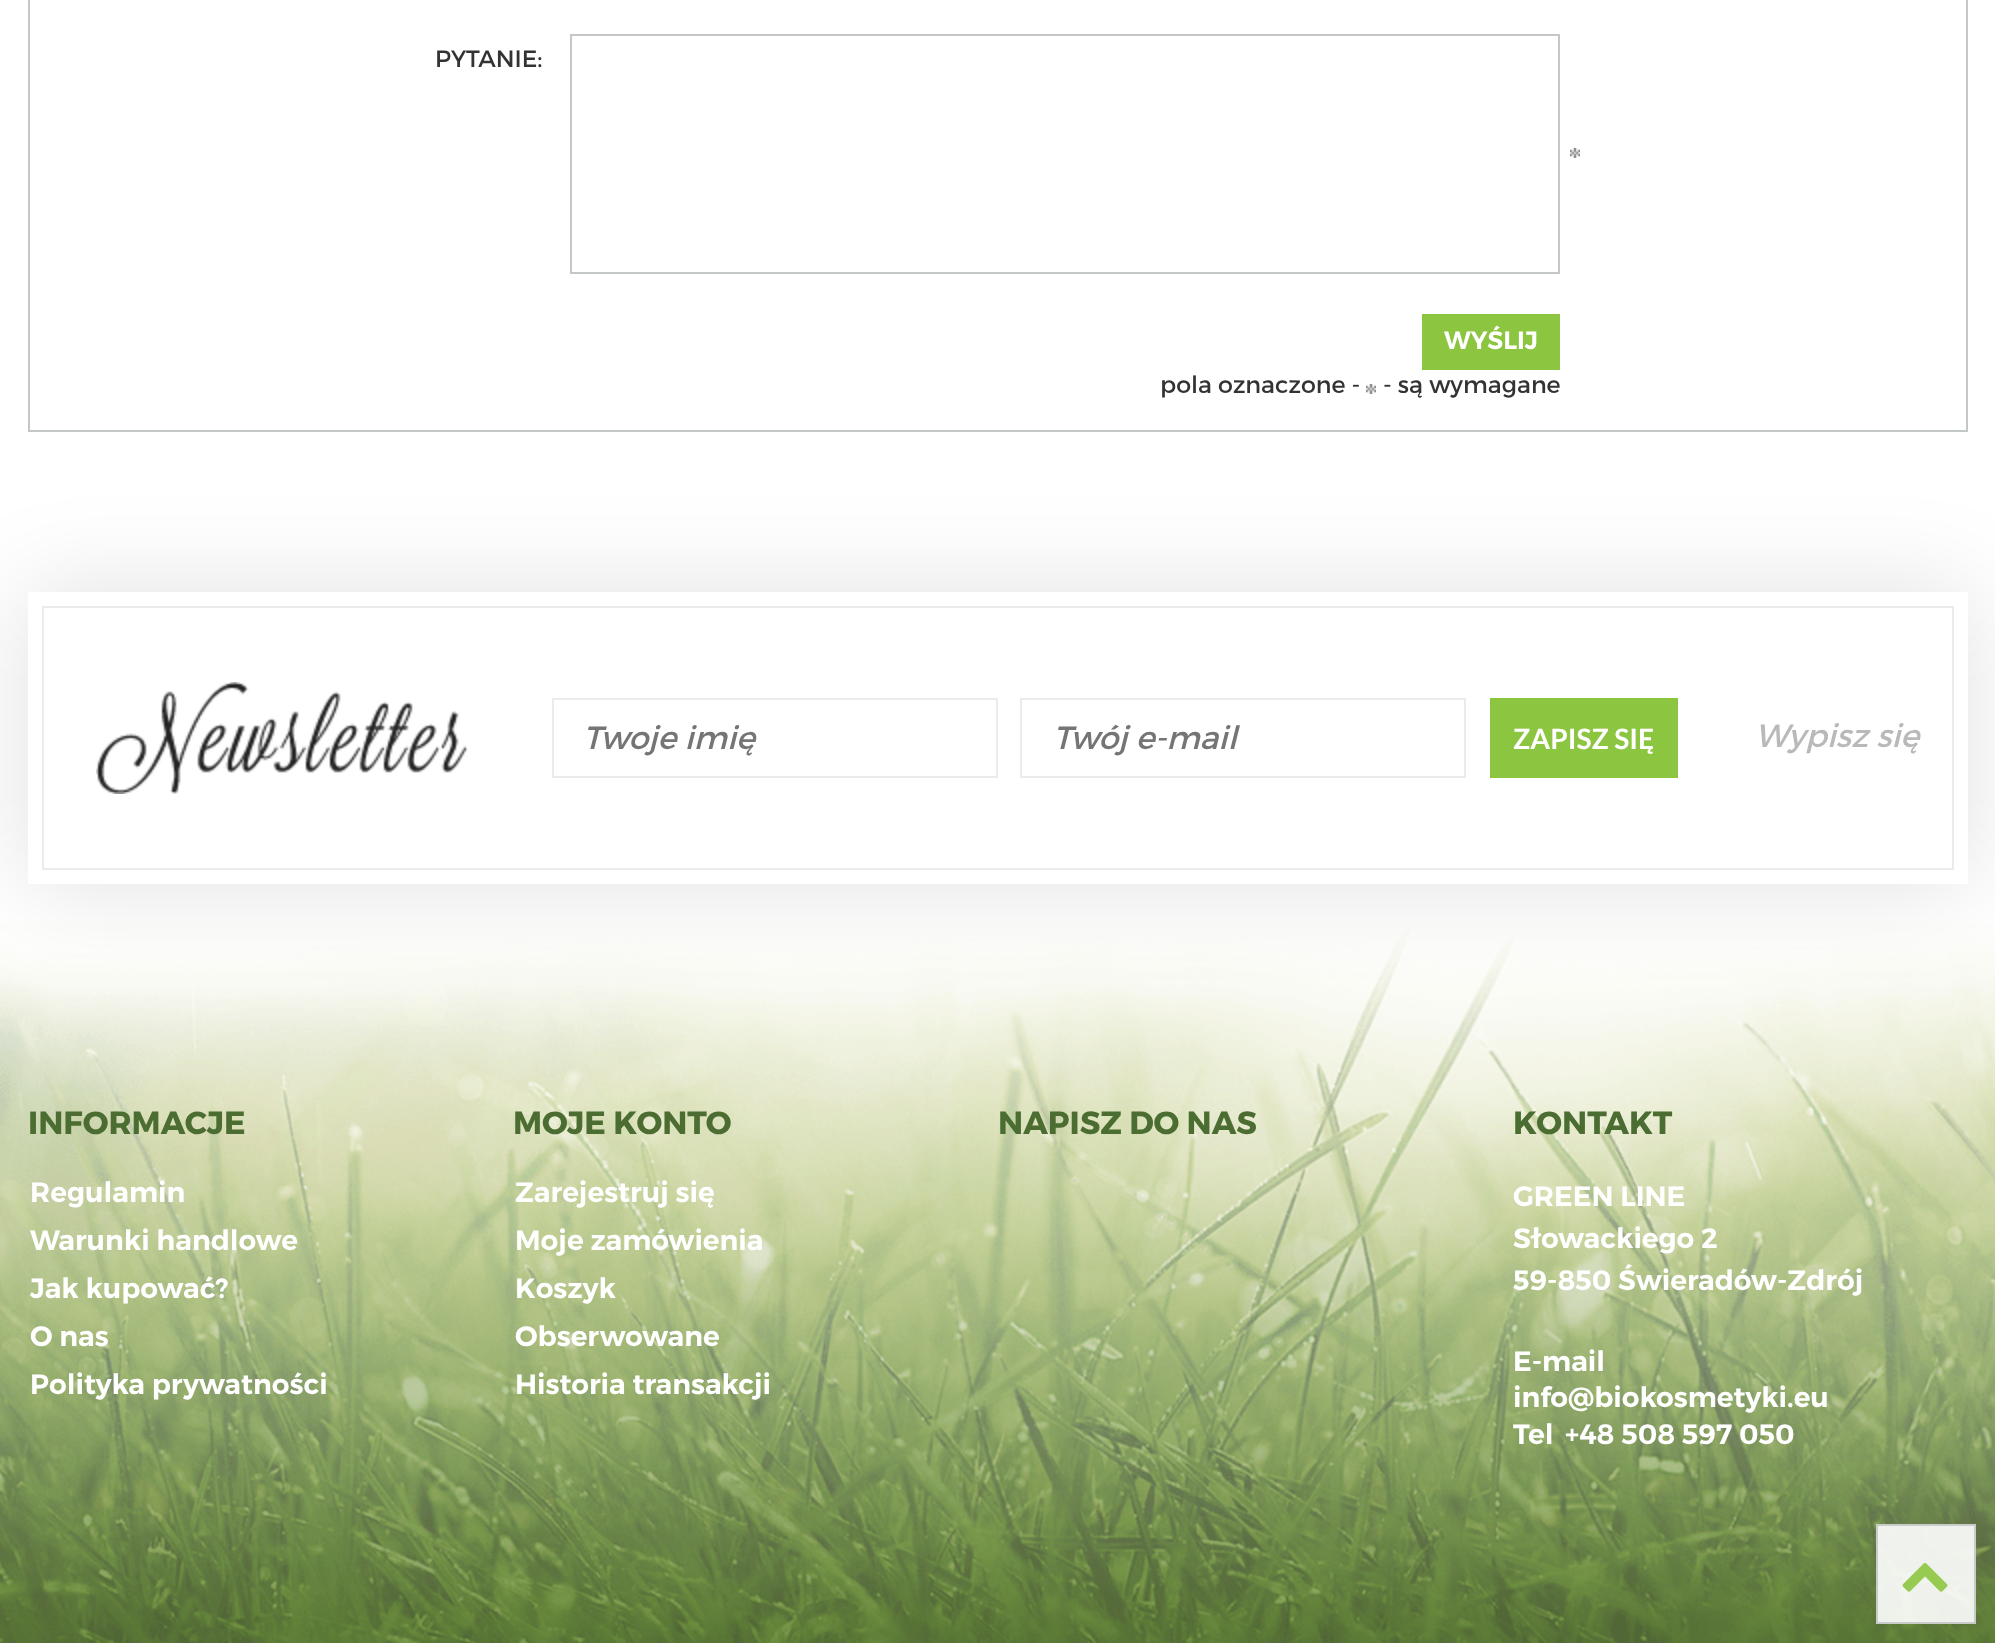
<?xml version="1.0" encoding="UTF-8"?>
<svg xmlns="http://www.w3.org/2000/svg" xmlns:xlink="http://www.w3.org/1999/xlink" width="1995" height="1643">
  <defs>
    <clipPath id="clip1"><path d="M 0 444 h 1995 v 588 h -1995 z m 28 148 h 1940 v 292 h -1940 z" clip-rule="evenodd" /></clipPath>
  </defs>
  <rect width="100%" height="100%" fill="#ffffff" />
  <image x="0" y="923" width="1995" height="720" xlink:href="image1.png" />
  <rect x="1966" width="2" height="432" fill="#c4c7c8" />
  <rect x="28" y="430" width="1940" height="2" fill="#c4c7c8" />
  <rect x="28" width="2" height="432" fill="#c4c7c8" />
  <rect x="571" y="35" width="988" height="238" fill="none" stroke="#c4c7c8" stroke-width="2" />
  <image x="1570" y="148" width="10" height="10" xlink:href="image2.png" />
  <rect x="1422" y="314" width="138" height="56" fill="#8cc540" />
  <image x="1366" y="384" width="10" height="10" xlink:href="image2.png" />
  <g clip-path="url(#clip1)">
    <rect x="28" y="592" width="1940" height="292" fill="#000000" fill-opacity="0.12" filter="blur(49px)" />
  </g>
  <rect x="43" y="607" width="1910" height="262" fill="none" stroke="#ebebeb" stroke-width="2" />
  <image x="96" y="682" width="372" height="112" xlink:href="image3.png" />
  <rect x="553" y="699" width="444" height="78" fill="none" stroke="#ebebeb" stroke-width="2" />
  <rect x="1021" y="699" width="444" height="78" fill="none" stroke="#ebebeb" stroke-width="2" />
  <rect x="1490" y="698" width="188" height="80" fill="#8cc540" />
  <rect x="1876" y="1524" width="100" height="100" fill="#ffffff" fill-opacity="0.9" />
  <rect x="1877" y="1525" width="98" height="98" fill="none" stroke="#c4c7c8" stroke-opacity="0.9" stroke-width="2" />
  <image x="1902" y="1562" width="46" height="30" xlink:href="image4.png" />
  <text x="435" y="67" style="font-family: Montserrat; font-size: 23.75px; fill: #333333">PYTANIE:</text>
  <text x="1444" y="349" style="font-family: Montserrat; font-size: 25px; font-weight: 600; fill: #ffffff">WYŚLIJ</text>
  <text x="1160" y="393" style="font-family: Montserrat; font-size: 23.75px; fill: #333333">pola oznaczone -</text>
  <text x="1383" y="393" style="font-family: Montserrat; font-size: 23.75px; fill: #333333">- są wymagane</text>
  <text x="583" y="749" style="font-family: Montserrat; font-size: 32px; font-style: italic; fill: #757575">Twoje imię</text>
  <text x="1053" y="749" style="font-family: Montserrat; font-size: 32px; font-style: italic; fill: #757575">Twój e-mail</text>
  <text x="1513" y="749" style="font-family: Lato; font-size: 28px; font-weight: bold; fill: #ffffff">ZAPISZ SIĘ</text>
  <text x="1755" y="747" style="font-family: Montserrat; font-size: 32px; font-style: italic; fill: #b9b9b9">Wypisz się</text>
  <text x="28" y="1134" style="font-family: Montserrat; font-size: 32px; font-weight: bold; fill: #4b6d32">INFORMACJE</text>
  <text x="30" y="1202" style="font-family: Montserrat; font-size: 28px; font-weight: 600; fill: #ffffff">Regulamin</text>
  <text x="30" y="1250" style="font-family: Montserrat; font-size: 28px; font-weight: 600; fill: #ffffff">Warunki handlowe</text>
  <text x="30" y="1298" style="font-family: Montserrat; font-size: 28px; font-weight: 600; fill: #ffffff">Jak kupować?</text>
  <text x="30" y="1346" style="font-family: Montserrat; font-size: 28px; font-weight: 600; fill: #ffffff">O nas</text>
  <text x="30" y="1394" style="font-family: Montserrat; font-size: 28px; font-weight: 600; fill: #ffffff">Polityka prywatności</text>
  <text x="513" y="1134" style="font-family: Montserrat; font-size: 32px; font-weight: bold; fill: #4b6d32">MOJE KONTO</text>
  <text x="515" y="1202" style="font-family: Montserrat; font-size: 28px; font-weight: 600; fill: #ffffff">Zarejestruj się</text>
  <text x="515" y="1250" style="font-family: Montserrat; font-size: 28px; font-weight: 600; fill: #ffffff">Moje zamówienia</text>
  <text x="515" y="1298" style="font-family: Montserrat; font-size: 28px; font-weight: 600; fill: #ffffff">Koszyk</text>
  <text x="515" y="1346" style="font-family: Montserrat; font-size: 28px; font-weight: 600; fill: #ffffff">Obserwowane</text>
  <text x="515" y="1394" style="font-family: Montserrat; font-size: 28px; font-weight: 600; fill: #ffffff">Historia transakcji</text>
  <text x="998" y="1134" style="font-family: Montserrat; font-size: 32px; font-weight: bold; fill: #4b6d32">NAPISZ DO NAS</text>
  <text x="1513" y="1134" style="font-family: Montserrat; font-size: 32px; font-weight: bold; fill: #4b6d32">KONTAKT</text>
  <text x="1513" y="1206" style="font-family: Montserrat; font-size: 28px; font-weight: 600; fill: #ffffff">GREEN LINE</text>
  <text x="1513" y="1248" style="font-family: Montserrat; font-size: 28px; font-weight: 600; fill: #ffffff">Słowackiego 2</text>
  <text x="1513" y="1290" style="font-family: Montserrat; font-size: 28px; font-weight: 600; fill: #ffffff">59-850 Świeradów-Zdrój</text>
  <text x="1513" y="1371" style="font-family: Montserrat; font-size: 28px; font-weight: 600; fill: #ffffff">E-mail</text>
  <text x="1513" y="1407" style="font-family: Montserrat; font-size: 28px; font-weight: 600; fill: #ffffff">info@biokosmetyki.eu</text>
  <text x="1513" y="1444" style="font-family: Montserrat; font-size: 28px; font-weight: 600; fill: #ffffff">Tel</text>
  <text x="1565" y="1444" style="font-family: Montserrat; font-size: 28px; font-weight: 600; fill: #ffffff">+48 508 597 050</text>
</svg>
